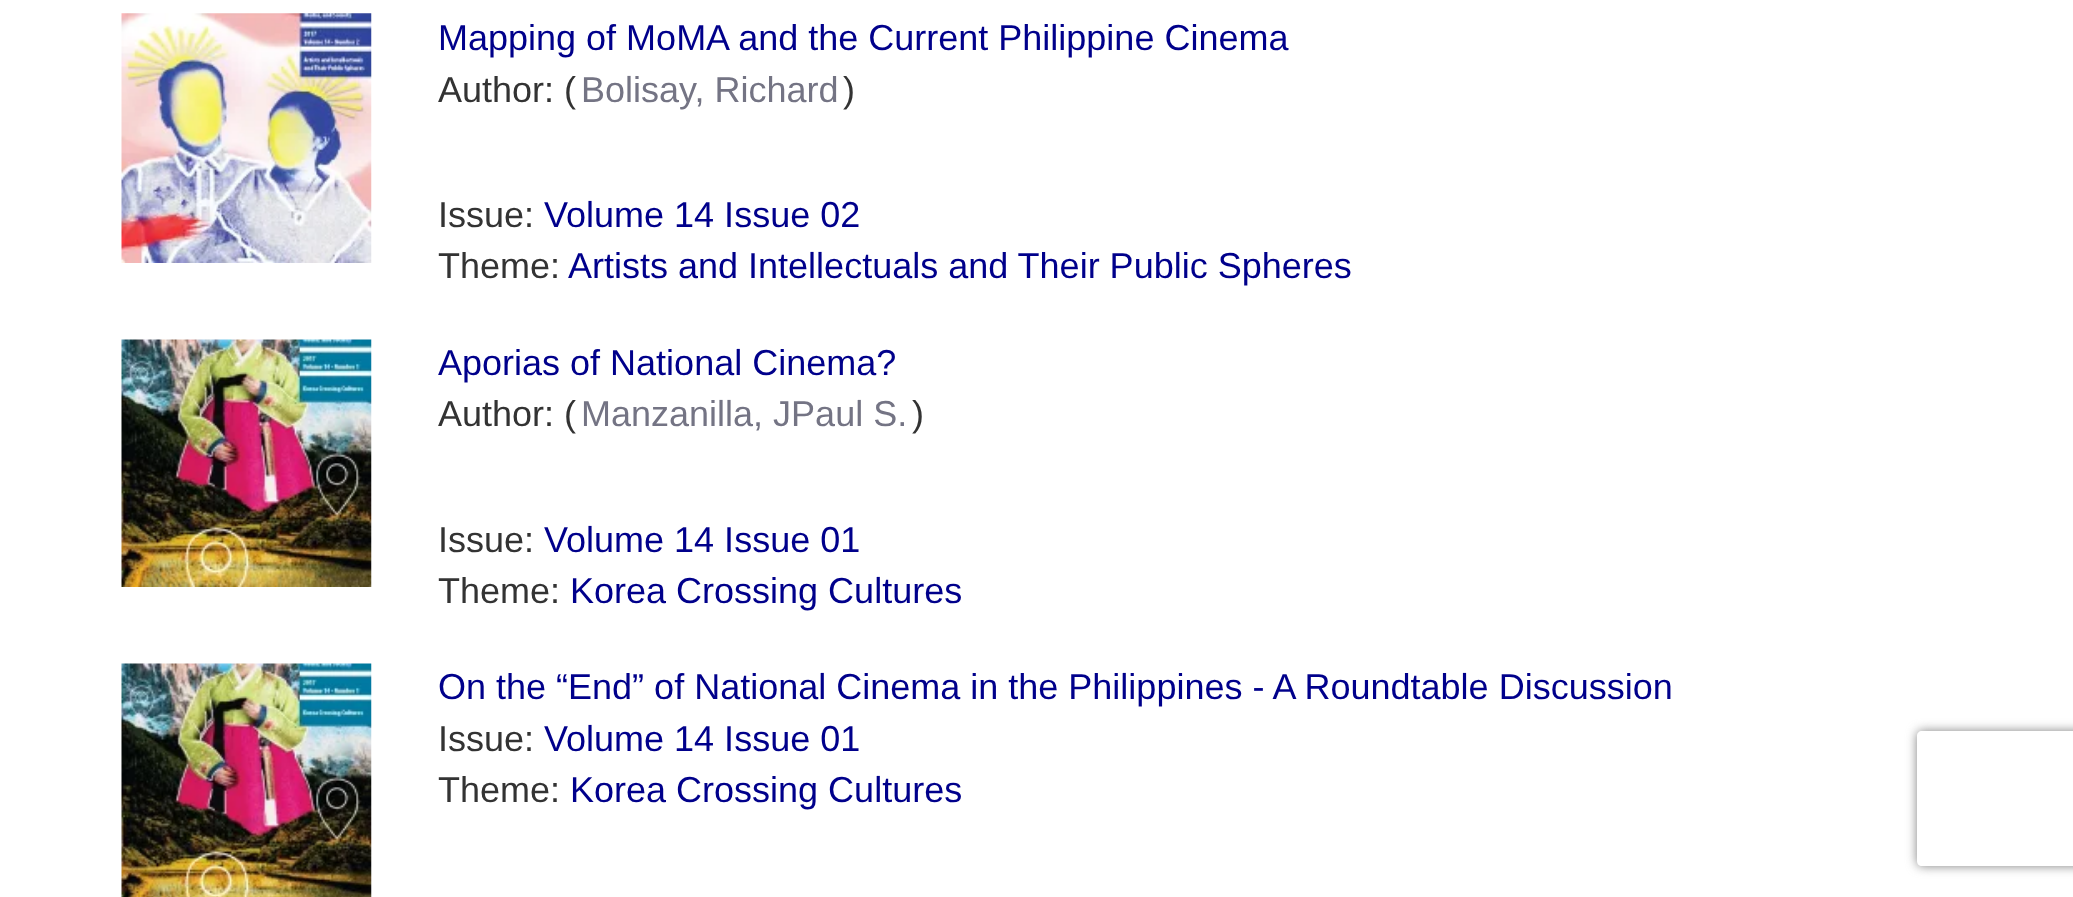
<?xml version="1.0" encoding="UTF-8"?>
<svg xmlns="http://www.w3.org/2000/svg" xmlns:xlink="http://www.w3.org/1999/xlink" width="2073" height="897">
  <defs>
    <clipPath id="clip1"><path d="M 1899 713 h 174 v 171 h -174 z m 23 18 h 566 c 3 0 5 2 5 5 v 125 c 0 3 -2 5 -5 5 h -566 c -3 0 -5 -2 -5 -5 v -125 c 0 -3 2 -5 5 -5 z" clip-rule="evenodd" /></clipPath>
  </defs>
  <rect width="100%" height="100%" fill="#ffffff" />
  <image x="121" y="13" width="251" height="250" xlink:href="image1.png" />
  <image x="121" y="339" width="251" height="248" xlink:href="image2.png" />
  <image x="121" y="663" width="251" height="234" xlink:href="image3.png" />
  <g clip-path="url(#clip1)">
    <rect x="1917" y="731" width="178" height="135" rx="5" fill="#808080" filter="blur(5.5px)" />
  </g>
  <text x="438" y="50" style="font-family: Liberation Sans; font-size: 36px; fill: #00008b">Mapping of MoMA and the Current Philippine Cinema</text>
  <text x="438" y="102" style="font-family: Liberation Sans; font-size: 36px; fill: #333333">Author: (</text>
  <text x="581" y="102" style="font-family: Liberation Sans; font-size: 36px; fill: #747484">Bolisay, Richard</text>
  <text x="843" y="102" style="font-family: Liberation Sans; font-size: 36px; fill: #333333">)</text>
  <text x="438" y="227" style="font-family: Liberation Sans; font-size: 36px; fill: #333333">Issue:</text>
  <text x="544" y="227" style="font-family: Liberation Sans; font-size: 36px; fill: #00008b">Volume 14 Issue 02</text>
  <text x="438" y="278" style="font-family: Liberation Sans; font-size: 36px; fill: #333333">Theme:</text>
  <text x="568" y="278" style="font-family: Liberation Sans; font-size: 36px; fill: #00008b">Artists and Intellectuals and Their Public Spheres</text>
  <text x="438" y="375" style="font-family: Liberation Sans; font-size: 36px; fill: #00008b">Aporias of National Cinema?</text>
  <text x="438" y="426" style="font-family: Liberation Sans; font-size: 36px; fill: #333333">Author: (</text>
  <text x="581" y="426" style="font-family: Liberation Sans; font-size: 36px; fill: #747484">Manzanilla, JPaul S.</text>
  <text x="912" y="426" style="font-family: Liberation Sans; font-size: 36px; fill: #333333">)</text>
  <text x="438" y="552" style="font-family: Liberation Sans; font-size: 36px; fill: #333333">Issue:</text>
  <text x="544" y="552" style="font-family: Liberation Sans; font-size: 36px; fill: #00008b">Volume 14 Issue 01</text>
  <text x="438" y="603" style="font-family: Liberation Sans; font-size: 36px; fill: #333333">Theme:</text>
  <text x="570" y="603" style="font-family: Liberation Sans; font-size: 36px; fill: #00008b">Korea Crossing Cultures</text>
  <text x="438" y="699" style="font-family: Liberation Sans; font-size: 36px; fill: #00008b">On the “End” of National Cinema in the Philippines - A Roundtable Discussion</text>
  <text x="438" y="751" style="font-family: Liberation Sans; font-size: 36px; fill: #333333">Issue:</text>
  <text x="544" y="751" style="font-family: Liberation Sans; font-size: 36px; fill: #00008b">Volume 14 Issue 01</text>
  <text x="438" y="802" style="font-family: Liberation Sans; font-size: 36px; fill: #333333">Theme:</text>
  <text x="570" y="802" style="font-family: Liberation Sans; font-size: 36px; fill: #00008b">Korea Crossing Cultures</text>
</svg>
